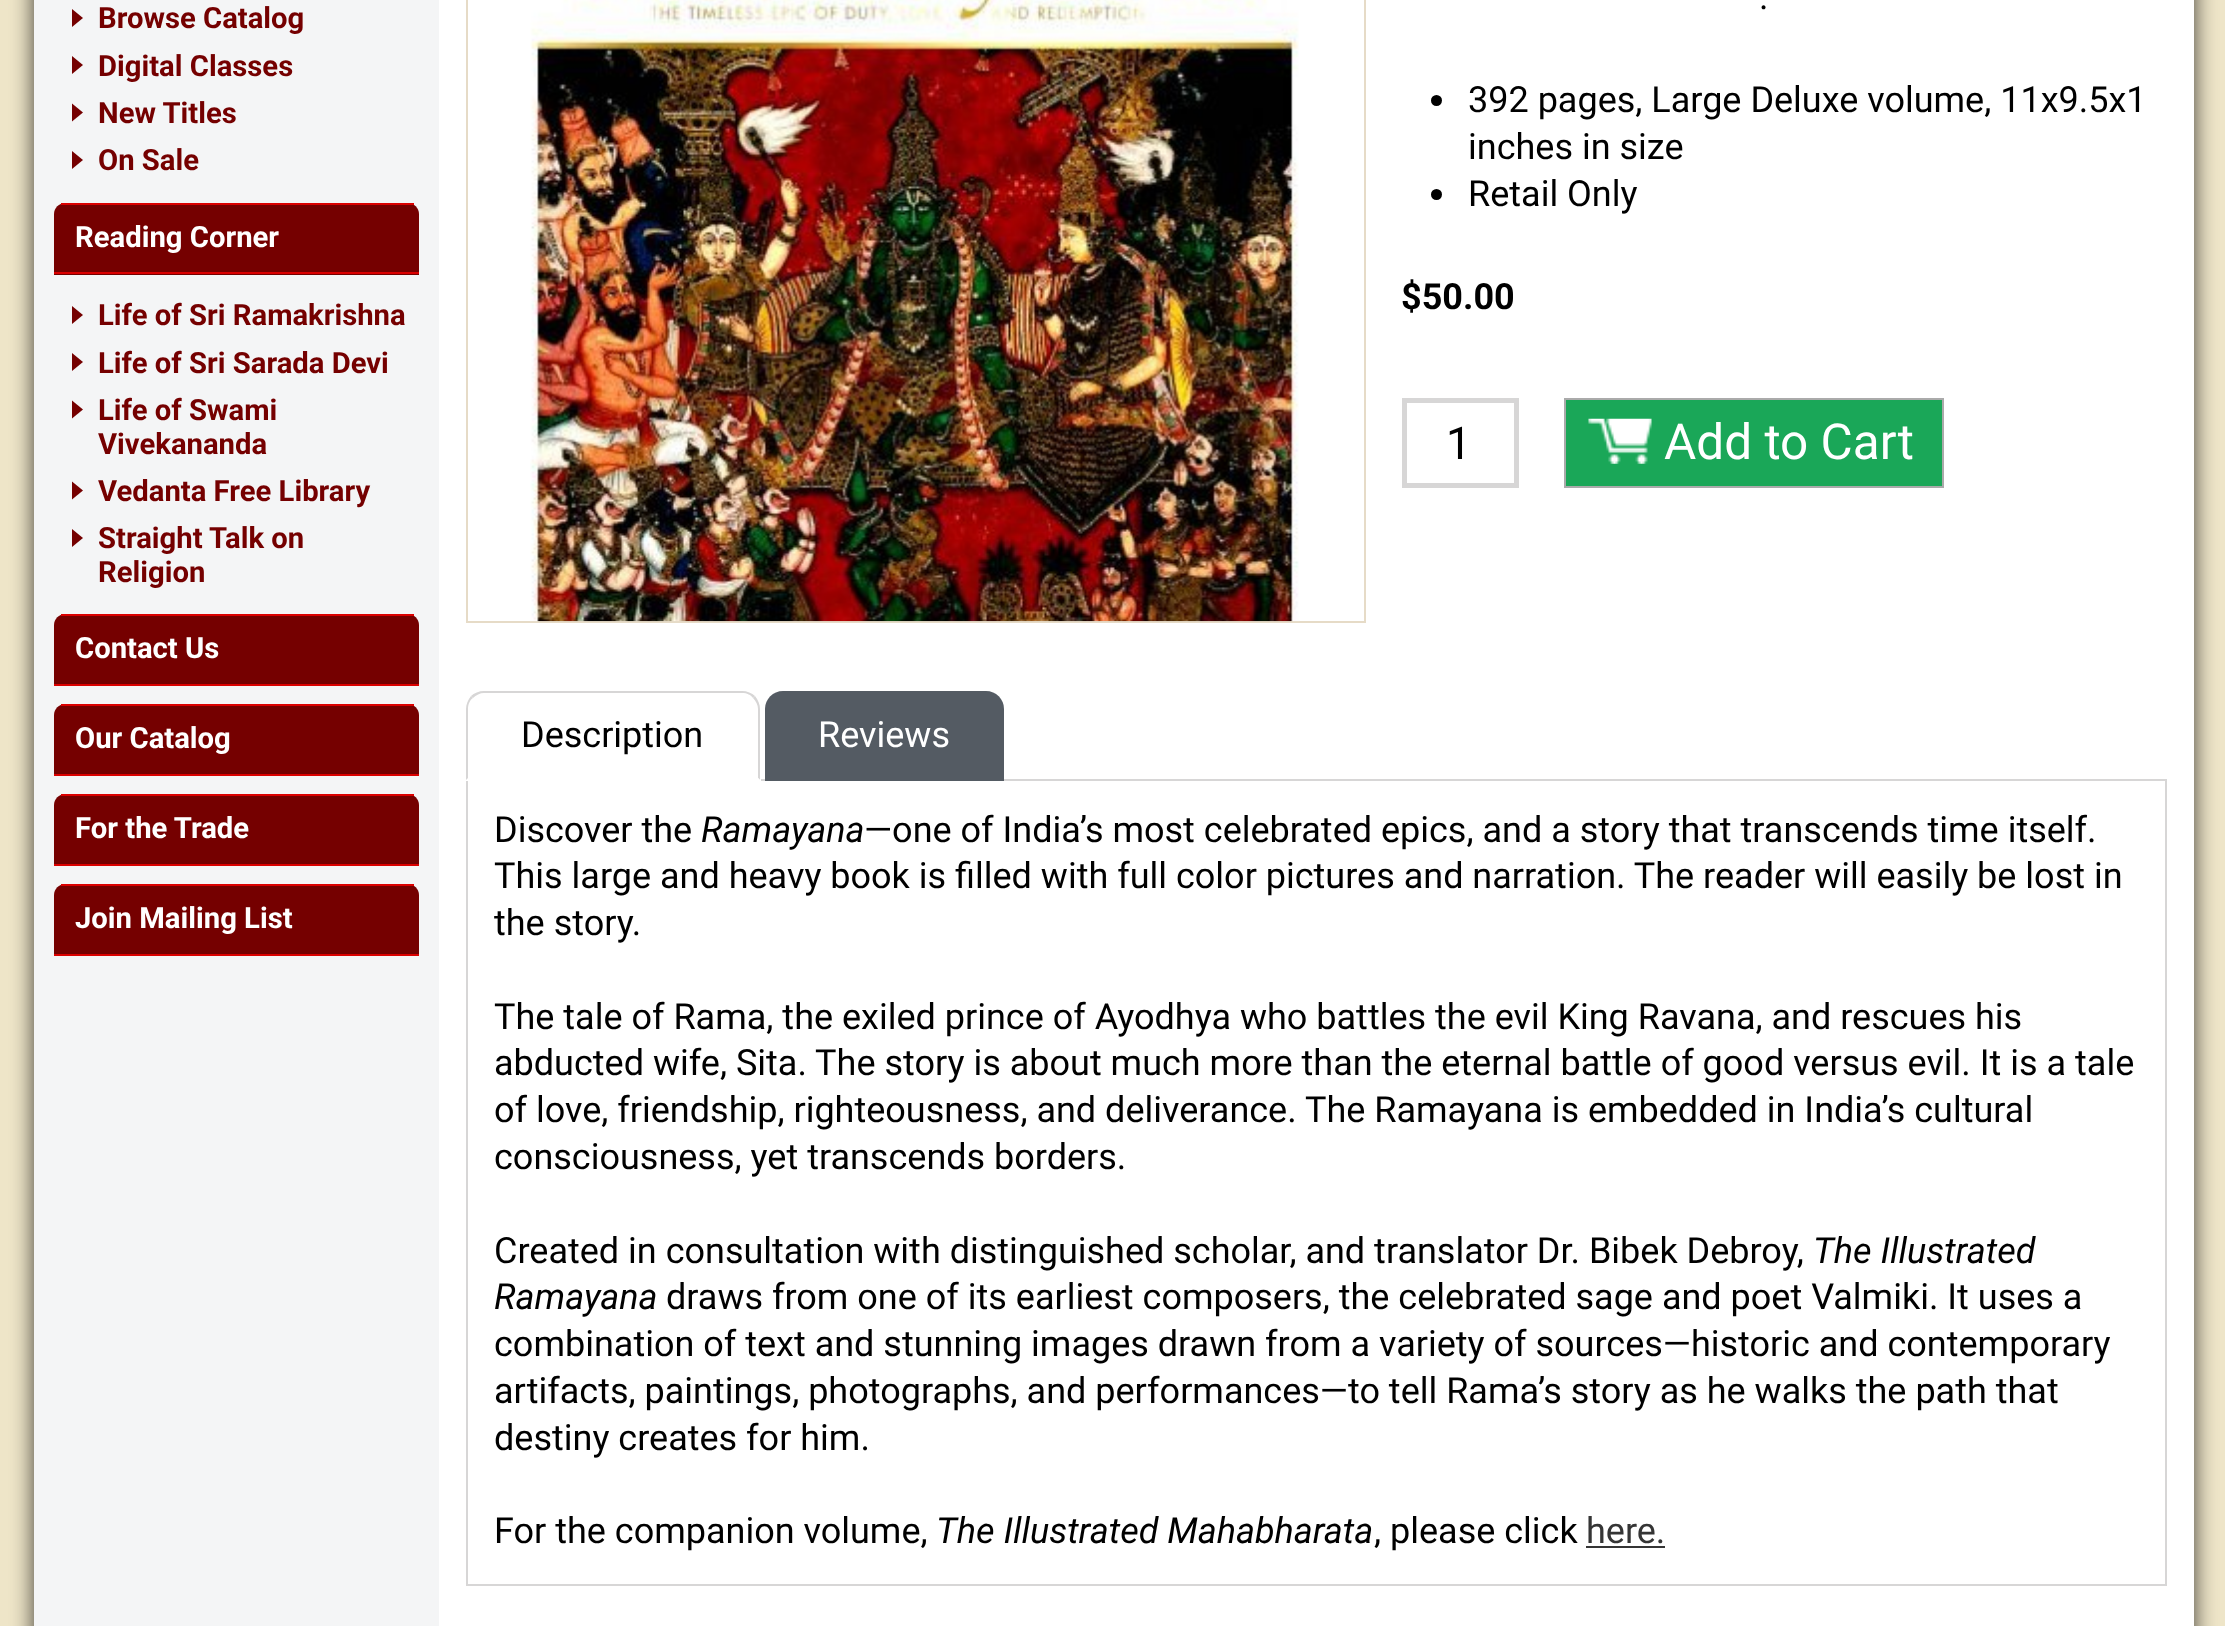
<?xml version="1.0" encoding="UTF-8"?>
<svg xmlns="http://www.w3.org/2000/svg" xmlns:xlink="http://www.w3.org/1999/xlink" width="2225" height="1626">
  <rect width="100%" height="100%" fill="#eee5c8" />
  <rect x="34" y="-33" width="2160" height="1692" fill="#000000" fill-opacity="0.75" filter="blur(11px)" />
  <rect x="34" width="405" height="1626" fill="#f4f5f6" />
  <rect x="439" width="1755" height="1626" fill="#ffffff" />
  <path d="M 72 27 v -18 l 11 9 z" fill="#750000" />
  <path d="M 72 74 v -18 l 11 9 z" fill="#750000" />
  <path d="M 72 121.5 v -18 l 11 9 z" fill="#750000" />
  <path d="M 72 169 v -18 l 11 9 z" fill="#750000" />
  <path d="M 65 203 h 343 c 6 0 11 5 11 11 v 61 h -365 v -61 c 0 -6 5 -11 11 -11 z" fill="#750000" />
  <rect x="61" y="203" width="353" height="2" fill="#db0000" />
  <rect x="54" y="272" width="365" height="2" fill="#db0000" />
  <path d="M 72 324 v -18 l 11 9 z" fill="#750000" />
  <path d="M 72 371 v -18 l 11 9 z" fill="#750000" />
  <path d="M 72 418.5 v -18 l 11 9 z" fill="#750000" />
  <path d="M 72 499.5 v -18 l 11 9 z" fill="#750000" />
  <path d="M 72 547 v -18 l 11 9 z" fill="#750000" />
  <path d="M 65 614 h 343 c 6 0 11 5 11 11 v 61 h -365 v -61 c 0 -6 5 -11 11 -11 z" fill="#750000" />
  <rect x="61" y="614" width="353" height="2" fill="#db0000" />
  <rect x="54" y="684" width="365" height="2" fill="#db0000" />
  <path d="M 65 704 h 343 c 6 0 11 5 11 11 v 61 h -365 v -61 c 0 -6 5 -11 11 -11 z" fill="#750000" />
  <rect x="61" y="704" width="353" height="2" fill="#db0000" />
  <rect x="54" y="774" width="365" height="2" fill="#db0000" />
  <path d="M 65 794 h 343 c 6 0 11 5 11 11 v 61 h -365 v -61 c 0 -6 5 -11 11 -11 z" fill="#750000" />
  <rect x="61" y="794" width="353" height="2" fill="#db0000" />
  <rect x="54" y="864" width="365" height="2" fill="#db0000" />
  <path d="M 65 884 h 343 c 6 0 11 5 11 11 v 61 h -365 v -61 c 0 -6 5 -11 11 -11 z" fill="#750000" />
  <rect x="61" y="884" width="353" height="2" fill="#db0000" />
  <rect x="54" y="954" width="365" height="2" fill="#db0000" />
  <rect x="467" y="-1" width="898" height="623" fill="none" stroke="#e6dbc7" stroke-width="2" />
  <image x="530" y="0" width="769" height="622" xlink:href="image1.png" />
  <circle cx="1436.5" cy="100.5" r="5.5" fill="#000000" />
  <circle cx="1436.5" cy="194.5" r="5.5" fill="#000000" />
  <rect x="1404.5" y="400.5" width="112" height="85" fill="none" stroke="#d7d6d6" stroke-width="5" />
  <rect x="1566" y="400" width="376" height="86" fill="#1aa758" />
  <image x="1588" y="418" width="64" height="46" xlink:href="image2.png" />
  <rect x="1565" y="399" width="378" height="88" fill="none" stroke="#aaaaaa" stroke-width="2" />
  <rect x="467" y="780" width="1699" height="805" fill="none" stroke="#d7d6d6" stroke-width="2" />
  <path d="M 484 691 h 259 c 10 0 18 8 18 18 v 72 h -295 v -72 c 0 -10 8 -18 18 -18 z" fill="#ffffff" />
  <path d="M 484 691 c -5 0 -10 2 -13 5 l 2 2 c 3 -3 7 -5 11 -5 h 258 c 5 0 9 2 11 5 l 2 -2 c -3 -3 -8 -5 -13 -5 z" fill="#d7d6d6" />
  <path d="M 760 780 v -71 c 0 -5 -2 -9 -5 -13 l -2 2 c 3 3 5 7 5 11 v 69 z" fill="#d7d6d6" />
  <path d="M 466 781 l 2 -3 h 290 l 2 2 v 1 z" fill="#ffffff" />
  <path d="M 471 696 c -3 4 -5 8 -5 13 v 71 l 2 -2 v -69 c 0 -5 2 -9 5 -11 z" fill="#d7d6d6" />
  <path d="M 783 691 h 203 c 10 0 18 8 18 18 v 72 h -239 v -72 c 0 -10 8 -18 18 -18 z" fill="#545b63" />
  <rect x="1586" y="1546" width="79" height="2" fill="#353535" />
  <text x="98" y="28" style="font-family: Roboto; font-size: 29.25px; font-weight: bold; fill: #750000">Browse Catalog</text>
  <text x="98" y="76" style="font-family: Roboto; font-size: 29.25px; font-weight: bold; fill: #750000">Digital Classes</text>
  <text x="98" y="123" style="font-family: Roboto; font-size: 29.25px; font-weight: bold; fill: #750000">New Titles</text>
  <text x="98" y="170" style="font-family: Roboto; font-size: 29.25px; font-weight: bold; fill: #750000">On Sale</text>
  <text x="75" y="247" style="font-family: Roboto; font-size: 29.25px; font-weight: bold; fill: #ffffff">Reading Corner</text>
  <text x="98" y="325" style="font-family: Roboto; font-size: 29.25px; font-weight: bold; fill: #750000">Life of Sri Ramakrishna</text>
  <text x="98" y="373" style="font-family: Roboto; font-size: 29.25px; font-weight: bold; fill: #750000">Life of Sri Sarada Devi</text>
  <text x="98" y="420" style="font-family: Roboto; font-size: 29.25px; font-weight: bold; fill: #750000">Life of Swami</text>
  <text x="98" y="454" style="font-family: Roboto; font-size: 29.25px; font-weight: bold; fill: #750000">Vivekananda</text>
  <text x="98" y="501" style="font-family: Roboto; font-size: 29.25px; font-weight: bold; fill: #750000">Vedanta Free Library</text>
  <text x="98" y="548" style="font-family: Roboto; font-size: 29.25px; font-weight: bold; fill: #750000">Straight Talk on</text>
  <text x="98" y="582" style="font-family: Roboto; font-size: 29.25px; font-weight: bold; fill: #750000">Religion</text>
  <text x="75" y="658" style="font-family: Roboto; font-size: 29.25px; font-weight: bold; fill: #ffffff">Contact Us</text>
  <text x="75" y="748" style="font-family: Roboto; font-size: 29.25px; font-weight: bold; fill: #ffffff">Our Catalog</text>
  <text x="75" y="838" style="font-family: Roboto; font-size: 29.25px; font-weight: bold; fill: #ffffff">For the Trade</text>
  <text x="75" y="928" style="font-family: Roboto; font-size: 29.25px; font-weight: bold; fill: #ffffff">Join Mailing List</text>
  <text x="1759" y="9" style="font-family: Roboto; font-size: 36px; fill: #000000">.</text>
  <text x="1468" y="112" style="font-family: Roboto; font-size: 36px; fill: #000000">392 pages, Large Deluxe volume, 11x9.5x1</text>
  <text x="1468" y="159" style="font-family: Roboto; font-size: 36px; fill: #000000">inches in size</text>
  <text x="1468" y="206" style="font-family: Roboto; font-size: 36px; fill: #000000">Retail Only</text>
  <text x="1401" y="309" style="font-family: Roboto; font-size: 36px; font-weight: bold; fill: #000000">$50.00</text>
  <text x="1446" y="459" style="font-family: Roboto; font-size: 45px; fill: #000000">1</text>
  <text x="1664" y="459" style="font-family: Roboto; font-size: 49.5px; fill: #ffffff">Add to Cart</text>
  <text x="521" y="747" style="font-family: Roboto; font-size: 36px; fill: #000000">Description</text>
  <text x="818" y="747" style="font-family: Roboto; font-size: 36px; fill: #ffffff">Reviews</text>
  <text x="494" y="842" style="font-family: Roboto; font-size: 36px; fill: #000000">Discover the</text>
  <text x="701" y="842" style="font-family: Roboto; font-size: 36px; font-style: italic; fill: #000000">Ramayana</text>
  <text x="864" y="842" style="font-family: Roboto; font-size: 36px; fill: #000000">—one of India’s most celebrated epics, and a story that transcends time itself.</text>
  <text x="494" y="888" style="font-family: Roboto; font-size: 36px; fill: #000000">This large and heavy book is filled with full color pictures and narration. The reader will easily be lost in</text>
  <text x="494" y="935" style="font-family: Roboto; font-size: 36px; fill: #000000">the story.</text>
  <text x="494" y="1029" style="font-family: Roboto; font-size: 36px; fill: #000000">The tale of Rama, the exiled prince of Ayodhya who battles the evil King Ravana, and rescues his</text>
  <text x="494" y="1075" style="font-family: Roboto; font-size: 36px; fill: #000000">abducted wife, Sita. The story is about much more than the eternal battle of good versus evil. It is a tale</text>
  <text x="494" y="1122" style="font-family: Roboto; font-size: 36px; fill: #000000">of love, friendship, righteousness, and deliverance. The Ramayana is embedded in India’s cultural</text>
  <text x="494" y="1169" style="font-family: Roboto; font-size: 36px; fill: #000000">consciousness, yet transcends borders.</text>
  <text x="494" y="1263" style="font-family: Roboto; font-size: 36px; fill: #000000">Created in consultation with distinguished scholar, and translator Dr. Bibek Debroy,</text>
  <text x="1813" y="1263" style="font-family: Roboto; font-size: 36px; font-style: italic; fill: #000000">The Illustrated</text>
  <text x="494" y="1309" style="font-family: Roboto; font-size: 36px; font-style: italic; fill: #000000">Ramayana</text>
  <text x="666" y="1309" style="font-family: Roboto; font-size: 36px; fill: #000000">draws from one of its earliest composers, the celebrated sage and poet Valmiki. It uses a</text>
  <text x="494" y="1356" style="font-family: Roboto; font-size: 36px; fill: #000000">combination of text and stunning images drawn from a variety of sources—historic and contemporary</text>
  <text x="494" y="1403" style="font-family: Roboto; font-size: 36px; fill: #000000">artifacts, paintings, photographs, and performances—to tell Rama’s story as he walks the path that</text>
  <text x="494" y="1450" style="font-family: Roboto; font-size: 36px; fill: #000000">destiny creates for him.</text>
  <text x="494" y="1543" style="font-family: Roboto; font-size: 36px; fill: #000000">For the companion volume,</text>
  <text x="936" y="1543" style="font-family: Roboto; font-size: 36px; font-style: italic; fill: #000000">The Illustrated Mahabharata</text>
  <text x="1374" y="1543" style="font-family: Roboto; font-size: 36px; fill: #000000">, please click</text>
  <text x="1586" y="1543" style="font-family: Roboto; font-size: 36px; fill: #353535">here.</text>
</svg>
